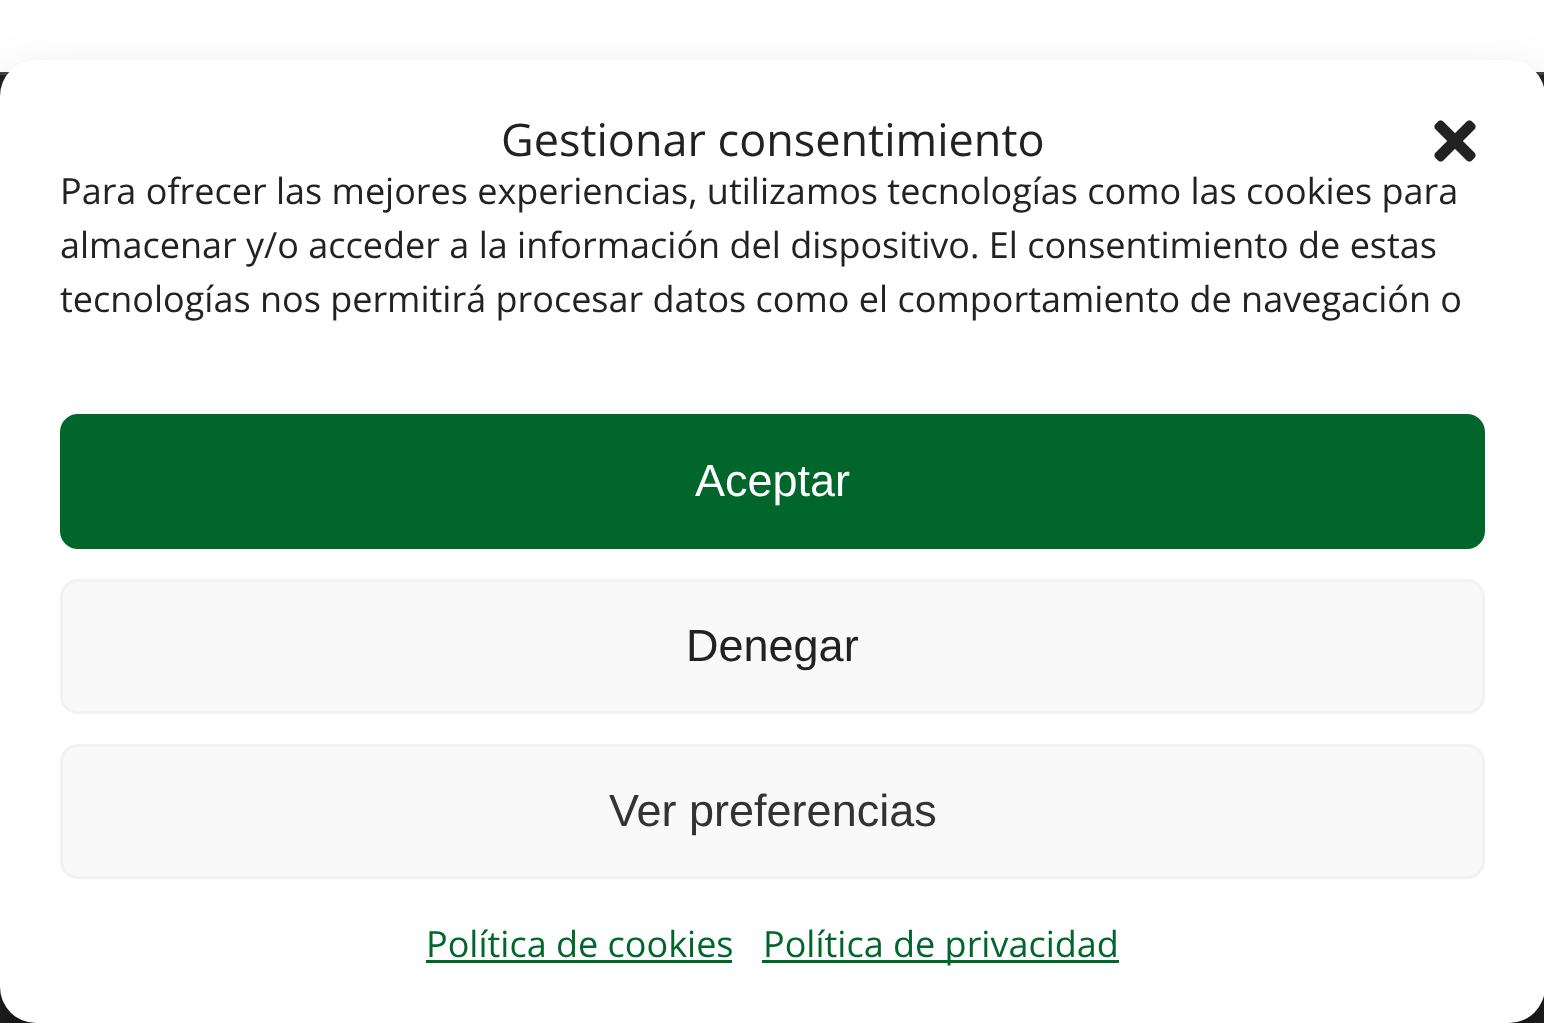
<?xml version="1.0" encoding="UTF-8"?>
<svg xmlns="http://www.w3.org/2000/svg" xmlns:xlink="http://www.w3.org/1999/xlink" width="1544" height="1023">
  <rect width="100%" height="100%" fill="#ffffff" />
  <rect y="75" width="1544" height="948" fill="#222222" />
  <rect y="72" width="1544" height="3" fill="#444444" />
  <rect y="78" width="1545" height="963" rx="36" fill="#000000" fill-opacity="0.23" filter="blur(9px)" />
  <rect y="90" width="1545" height="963" rx="36" fill="#000000" fill-opacity="0.19" filter="blur(30px)" />
  <rect y="60" width="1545" height="963" rx="36" fill="#ffffff" />
  <image x="1434" y="120" width="42" height="42" xlink:href="image1.png" />
  <rect x="61.5" y="415.5" width="1422" height="132" rx="16.5" fill="#00662b" stroke="#00662b" stroke-width="3" />
  <rect x="61.5" y="580.5" width="1422" height="132" rx="16.5" fill="#f9f9f9" stroke="#f2f2f2" stroke-width="3" />
  <rect x="61.5" y="745.5" width="1422" height="132" rx="16.5" fill="#f9f9f9" stroke="#f2f2f2" stroke-width="3" />
  <rect x="426" y="960" width="306" height="3" fill="#00662b" />
  <rect x="762" y="960" width="357" height="3" fill="#00662b" />
  <text x="501" y="156" style="font-family: Open Sans; font-size: 45px; fill: #222222">Gestionar consentimiento</text>
  <text x="60" y="204" style="font-family: Open Sans; font-size: 36px; fill: #222222">Para ofrecer las mejores experiencias, utilizamos tecnologías como las cookies para</text>
  <text x="60" y="258" style="font-family: Open Sans; font-size: 36px; fill: #222222">almacenar y/o acceder a la información del dispositivo. El consentimiento de estas</text>
  <text x="60" y="312" style="font-family: Open Sans; font-size: 36px; fill: #222222">tecnologías nos permitirá procesar datos como el comportamiento de navegación o</text>
  <text x="695" y="496" style="font-family: Liberation Sans; font-size: 45px; fill: #ffffff">Aceptar</text>
  <text x="686" y="661" style="font-family: Liberation Sans; font-size: 45px; fill: #222222">Denegar</text>
  <text x="609" y="826" style="font-family: Liberation Sans; font-size: 45px; fill: #333333">Ver preferencias</text>
  <text x="426" y="957" style="font-family: Open Sans; font-size: 36px; fill: #00662b">Política de cookies</text>
  <text x="763" y="957" style="font-family: Open Sans; font-size: 36px; fill: #00662b">Política de privacidad</text>
</svg>
